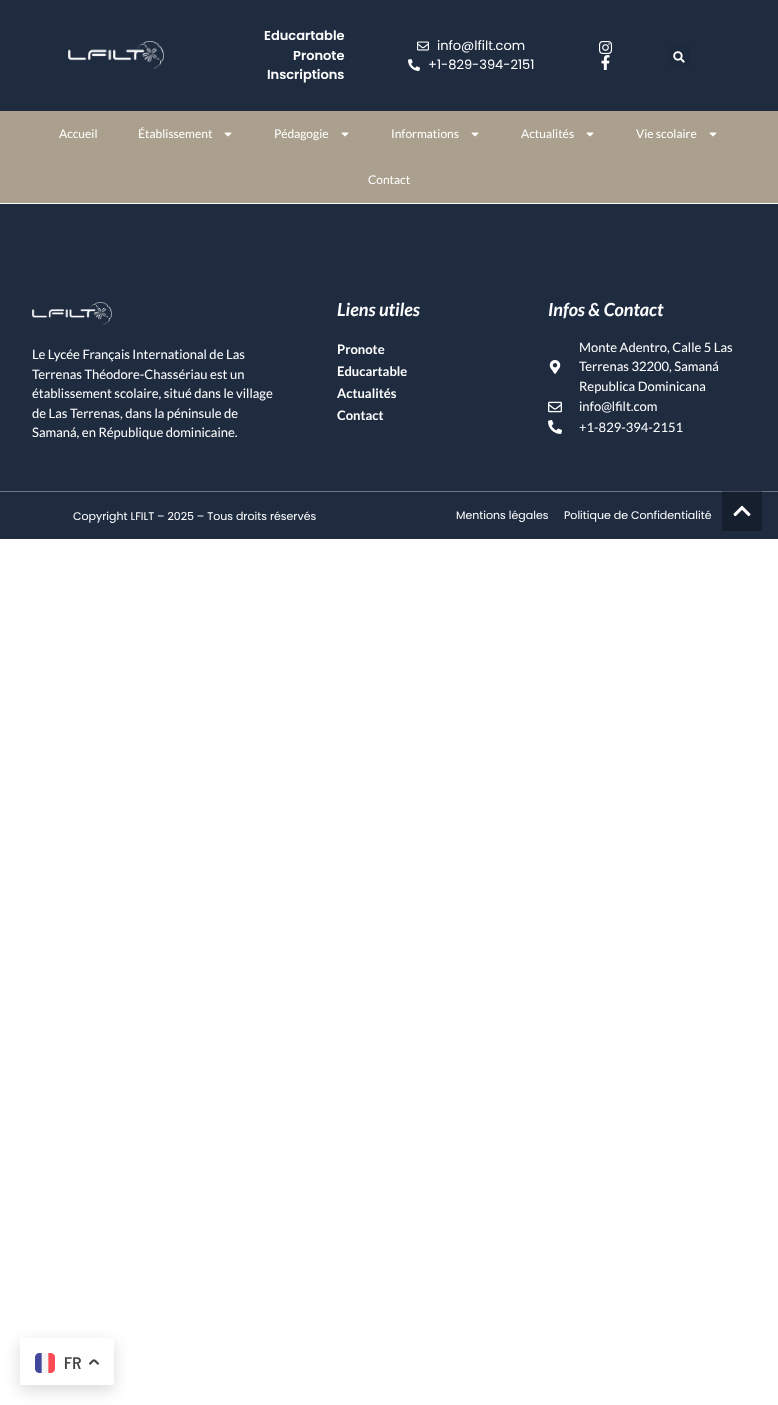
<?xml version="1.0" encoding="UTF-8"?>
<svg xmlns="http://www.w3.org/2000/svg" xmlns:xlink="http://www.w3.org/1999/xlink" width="778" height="1405">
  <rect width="100%" height="100%" fill="#ffffff" />
  <rect width="778" height="111" fill="#1f2c40" />
  <image x="68" y="41" width="96" height="28" xlink:href="image1.png" />
  <image x="417" y="41" width="12" height="10" xlink:href="image2.png" />
  <image x="408" y="59" width="12" height="12" xlink:href="image3.png" />
  <image x="599" y="41" width="14" height="13" xlink:href="image4.png" />
  <image x="601" y="55" width="9" height="15" xlink:href="image5.png" />
  <rect x="669" y="46" width="21" height="21" rx="3" fill="#1d2a3d" />
  <image x="673" y="51" width="12" height="12" xlink:href="image6.png" />
  <rect y="111" width="778" height="92" fill="#aba08d" />
  <image x="224" y="132" width="8" height="5" xlink:href="image7.png" />
  <image x="341" y="132" width="8" height="5" xlink:href="image7.png" />
  <image x="471" y="132" width="8" height="5" xlink:href="image7.png" />
  <image x="586" y="132" width="8" height="5" xlink:href="image7.png" />
  <image x="709" y="132" width="8" height="5" xlink:href="image7.png" />
  <rect y="204" width="778" height="335" fill="#1f2c40" />
  <rect x="722" y="492" width="40" height="39" fill="#161f2d" />
  <image x="32" y="302" width="80" height="23" xlink:href="image8.png" />
  <image x="549" y="360" width="12" height="14" xlink:href="image9.png" />
  <image x="548" y="401" width="14" height="12" xlink:href="image10.png" />
  <image x="548" y="420" width="14" height="14" xlink:href="image11.png" />
  <rect y="491" width="778" height="1" fill="#6b7481" />
  <rect x="722" y="491" width="40" height="1" fill="#4b515a" />
  <image x="733" y="505" width="18" height="12" xlink:href="image12.png" />
  <rect x="20" y="1343" width="94" height="47" rx="2" fill="#000000" fill-opacity="0.15" filter="blur(7.5px)" />
  <rect x="20" y="1338" width="94" height="47" rx="2" fill="#ffffff" />
  <image x="35" y="1353" width="20" height="20" xlink:href="image13.png" />
  <image x="89" y="1359" width="10" height="6" xlink:href="image14.png" />
  <text x="264" y="40" style="font-family: Poppins; font-size: 13px; font-weight: 600; fill: #ffffff">Educartable</text>
  <text x="293" y="60" style="font-family: Poppins; font-size: 13px; font-weight: 600; fill: #ffffff">Pronote</text>
  <text x="267" y="79" style="font-family: Poppins; font-size: 13px; font-weight: 600; fill: #ffffff">Inscriptions</text>
  <text x="437" y="50" style="font-family: Poppins; font-size: 13px; fill: #ffffff">info@lfilt.com</text>
  <text x="428" y="69" style="font-family: Poppins; font-size: 13px; fill: #ffffff">+1-829-394-2151</text>
  <text x="59" y="138" style="font-family: Lato; font-size: 12px; fill: #ffffff">Accueil</text>
  <text x="138" y="138" style="font-family: Lato; font-size: 12px; fill: #ffffff">Établissement</text>
  <text x="274" y="138" style="font-family: Lato; font-size: 12px; fill: #ffffff">Pédagogie</text>
  <text x="391" y="138" style="font-family: Lato; font-size: 12px; fill: #ffffff">Informations</text>
  <text x="521" y="138" style="font-family: Lato; font-size: 12px; fill: #ffffff">Actualités</text>
  <text x="636" y="138" style="font-family: Lato; font-size: 12px; fill: #ffffff">Vie scolaire</text>
  <text x="368" y="184" style="font-family: Lato; font-size: 12px; fill: #ffffff">Contact</text>
  <text x="32" y="359" style="font-family: Lato; font-size: 13px; fill: #ffffff">Le Lycée Français International de Las</text>
  <text x="32" y="379" style="font-family: Lato; font-size: 13px; fill: #ffffff">Terrenas Théodore-Chassériau est un</text>
  <text x="32" y="398" style="font-family: Lato; font-size: 13px; fill: #ffffff">établissement scolaire, situé dans le village</text>
  <text x="32" y="418" style="font-family: Lato; font-size: 13px; fill: #ffffff">de Las Terrenas, dans la péninsule de</text>
  <text x="32" y="437" style="font-family: Lato; font-size: 13px; fill: #ffffff">Samaná, en République dominicaine.</text>
  <text x="337" y="316" style="font-family: Lato; font-size: 18px; font-weight: bold; font-style: italic; fill: #ffffff">Liens utiles</text>
  <text x="337" y="354" style="font-family: Lato; font-size: 13px; font-weight: bold; fill: #ffffff">Pronote</text>
  <text x="337" y="376" style="font-family: Lato; font-size: 13px; font-weight: bold; fill: #ffffff">Educartable</text>
  <text x="337" y="398" style="font-family: Lato; font-size: 13px; font-weight: bold; fill: #ffffff">Actualités</text>
  <text x="337" y="420" style="font-family: Lato; font-size: 13px; font-weight: bold; fill: #ffffff">Contact</text>
  <text x="548" y="316" style="font-family: Lato; font-size: 18px; font-weight: bold; font-style: italic; fill: #ffffff">Infos &amp; Contact</text>
  <text x="579" y="352" style="font-family: Lato; font-size: 13px; fill: #ffffff">Monte Adentro, Calle 5 Las</text>
  <text x="579" y="371" style="font-family: Lato; font-size: 13px; fill: #ffffff">Terrenas 32200, Samaná</text>
  <text x="579" y="391" style="font-family: Lato; font-size: 13px; fill: #ffffff">Republica Dominicana</text>
  <text x="579" y="411" style="font-family: Lato; font-size: 13px; fill: #ffffff">info@lfilt.com</text>
  <text x="579" y="432" style="font-family: Lato; font-size: 13px; fill: #ffffff">+1-829-394-2151</text>
  <text x="73" y="520" style="font-family: Poppins; font-size: 11px; fill: #ffffff">Copyright LFILT – 2025 – Tous droits réservés</text>
  <text x="456" y="519" style="font-family: Poppins; font-size: 11px; fill: #ffffff">Mentions légales</text>
  <text x="564" y="519" style="font-family: Poppins; font-size: 11px; fill: #ffffff">Politique de Confidentialité</text>
  <text x="64" y="1369" style="font-family: News Cycle; font-size: 16px; font-weight: bold; fill: #444444">FR</text>
</svg>
